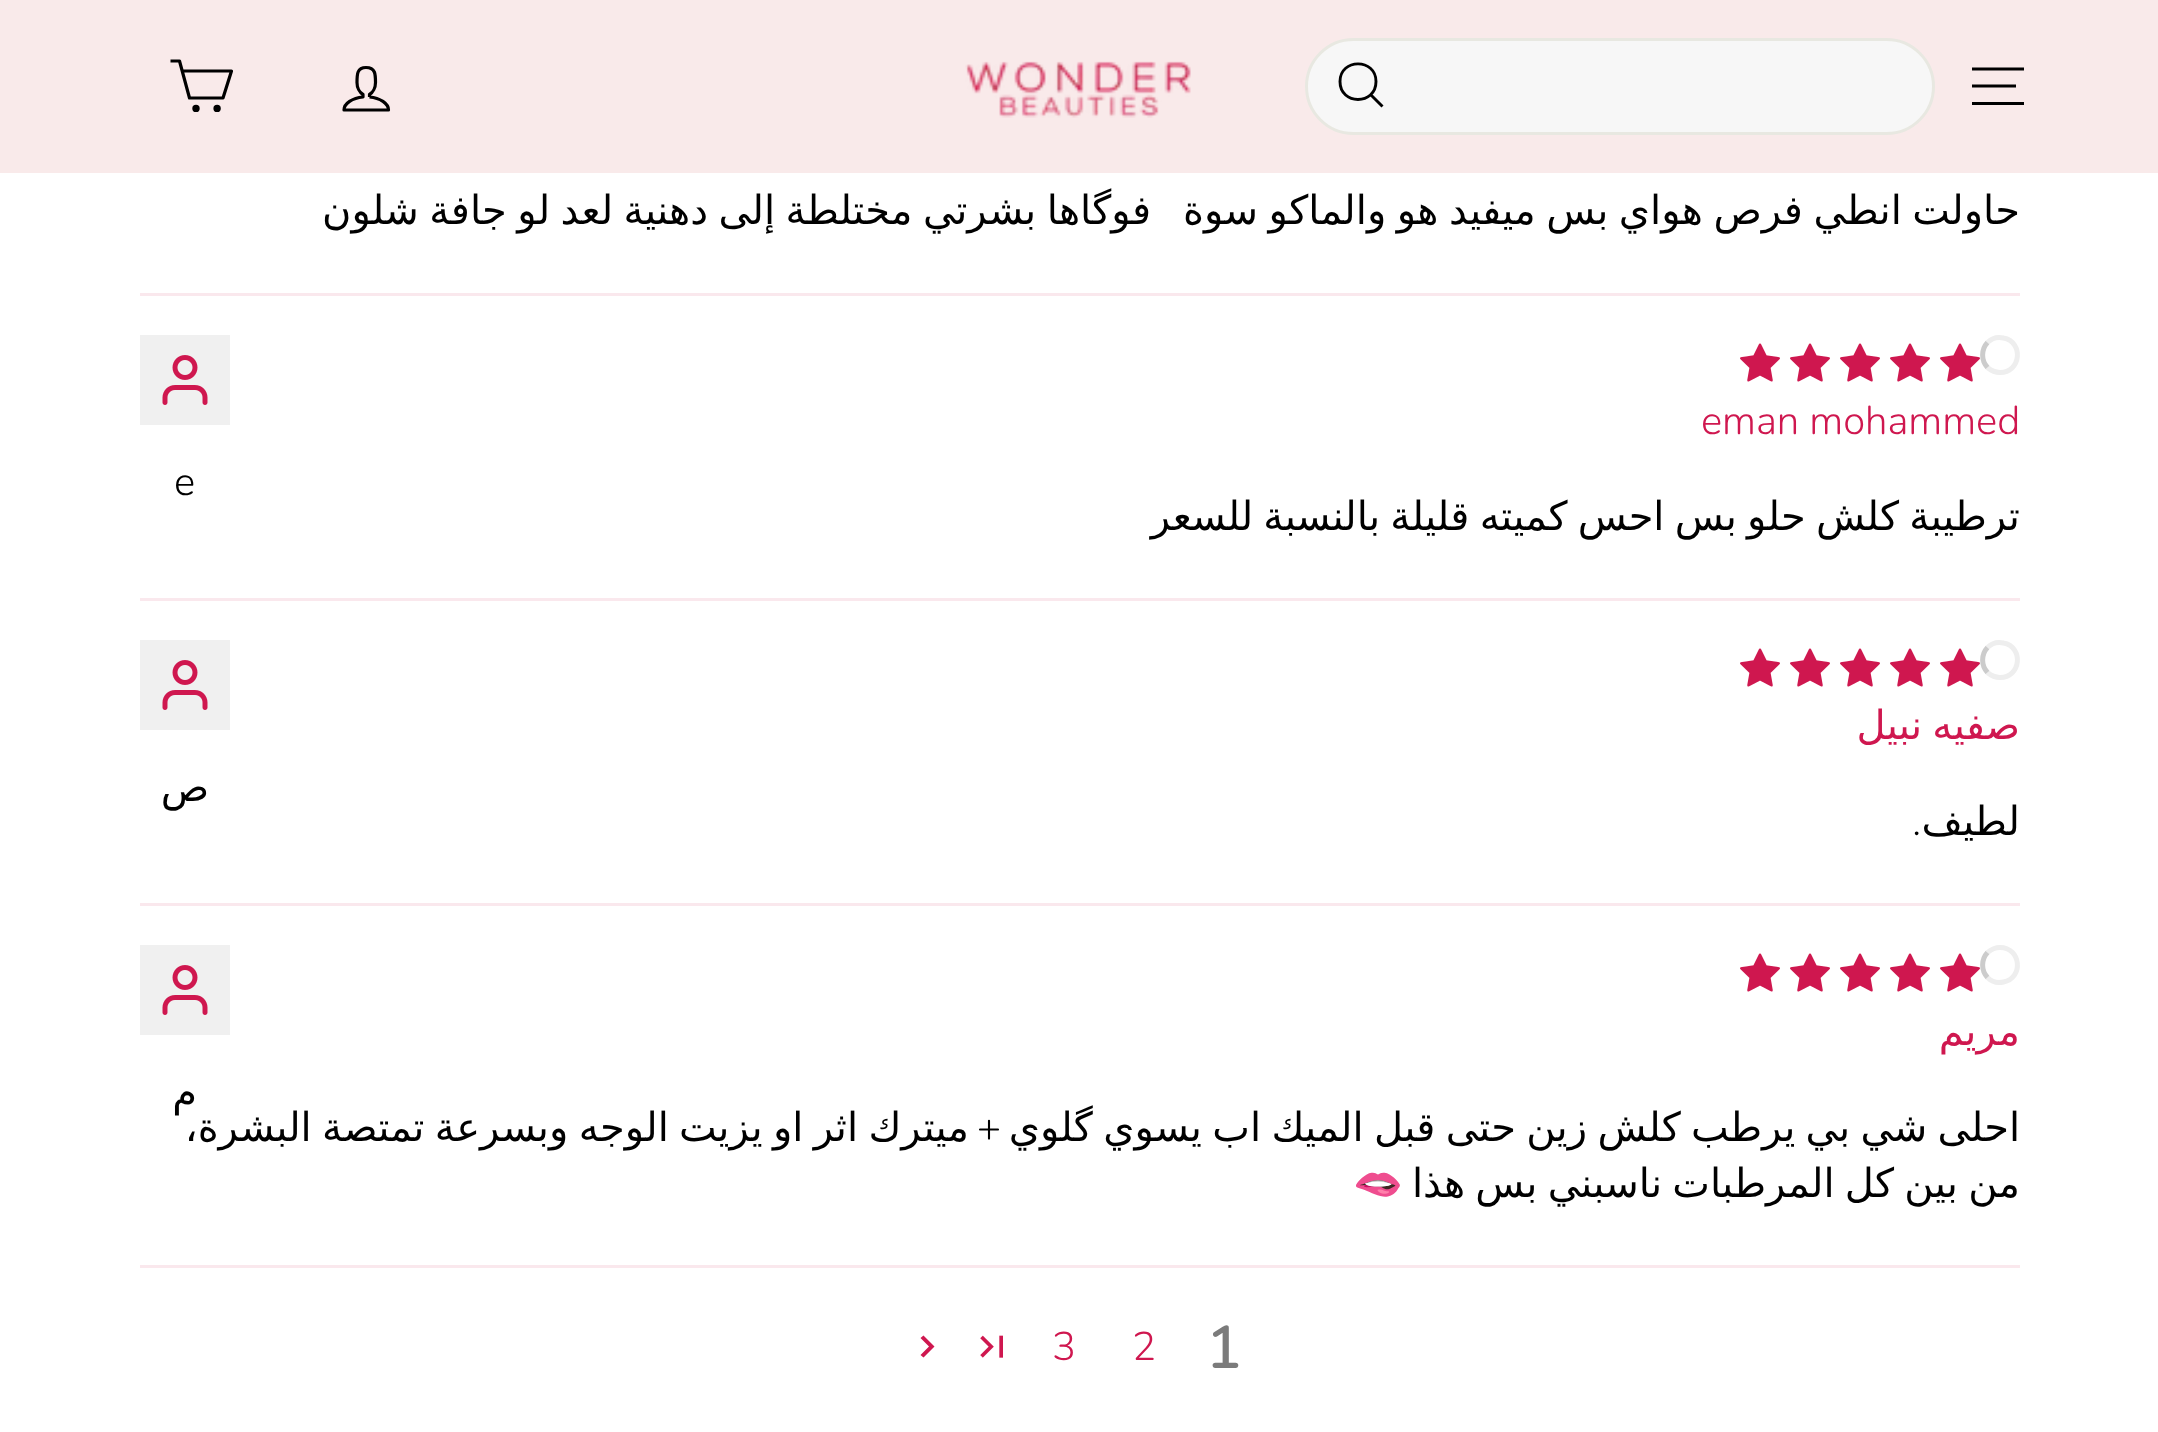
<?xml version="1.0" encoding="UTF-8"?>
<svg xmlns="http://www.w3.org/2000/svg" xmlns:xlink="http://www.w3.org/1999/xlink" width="2158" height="1432">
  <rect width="100%" height="100%" fill="#ffffff" />
  <rect width="2158" height="173" fill="#f9eaea" />
  <path d="M 1972 69 h 52 m -52 17 h 44" fill="none" stroke="#000000" stroke-width="3" stroke-linejoin="round" />
  <rect x="1972" y="102" width="52" height="3" fill="#000000" />
  <rect x="1306.5" y="39.5" width="627" height="94" rx="47" fill="#f7f7f7" stroke="#e8e8e1" stroke-width="3" />
  <path d="M 1376 81.5 c 0 24 -36 24 -36 0 c 0 -23.5 36 -23.5 36 0 m 6.5 25 l -11.5 -11.5" fill="none" stroke="#000000" stroke-width="2.9" stroke-linejoin="round" />
  <image x="965" y="61" width="226" height="57" xlink:href="image1.png" />
  <path d="M 369.5 97 v -2.5 c 3.5 -2 6 -7 6 -12 c 0 -8 0 -15 -9.5 -15 c -9 0 -9 7 -9 15 c 0 5 2.5 10 6 12 v 2.5 c -10.5 1 -19 6.5 -19 13 h 44.5 c 0 -6.5 -8.5 -12 -19 -13" fill="none" stroke="#000000" stroke-width="3.2" stroke-linejoin="round" />
  <path d="M 182.5 71 h 49 l -8.5 27 h -33.5 l -10 -37 h -9" fill="none" stroke="#000000" stroke-width="3.2" stroke-linejoin="round" />
  <circle cx="196" cy="108.4" r="2.1" fill="#000000" stroke="#000000" stroke-width="3.2" />
  <circle cx="217.1" cy="108.4" r="2.1" fill="#000000" stroke="#000000" stroke-width="3.2" />
  <rect x="140" y="293" width="1880" height="3" fill="#fae8ed" />
  <path d="M 1987.5 342.5 c 4 -4 10 -6 16 -4.5 c 20.5 4 17.5 34.5 -3.5 34.5 c -4.5 0 -9 -2 -12.5 -5" fill="none" stroke="#eeeeee" stroke-width="5" />
  <path d="M 1987.5 367.5 c -6.5 -7 -6.5 -18 0 -25" fill="none" stroke="#cccccc" stroke-width="5" />
  <image x="1940" y="343" width="40" height="39" xlink:href="image2.png" />
  <image x="1890" y="343" width="40" height="39" xlink:href="image2.png" />
  <image x="1840" y="343" width="40" height="39" xlink:href="image2.png" />
  <image x="1790" y="343" width="40" height="39" xlink:href="image2.png" />
  <image x="1740" y="343" width="40" height="39" xlink:href="image2.png" />
  <rect x="140" y="335" width="90" height="90" fill="#f0f0f0" />
  <image x="162" y="355" width="46" height="50" xlink:href="image3.png" />
  <rect x="140" y="598" width="1880" height="3" fill="#fae8ed" />
  <path d="M 1987.5 647.5 c 4 -4 10 -6 16 -4.5 c 20.5 4 17.5 34.5 -3.5 34.5 c -4.5 0 -9 -2 -12.5 -5" fill="none" stroke="#eeeeee" stroke-width="5" />
  <path d="M 1987.5 672.5 c -6.5 -7 -6.5 -18 0 -25" fill="none" stroke="#cccccc" stroke-width="5" />
  <image x="1940" y="648" width="40" height="39" xlink:href="image2.png" />
  <image x="1890" y="648" width="40" height="39" xlink:href="image2.png" />
  <image x="1840" y="648" width="40" height="39" xlink:href="image2.png" />
  <image x="1790" y="648" width="40" height="39" xlink:href="image2.png" />
  <image x="1740" y="648" width="40" height="39" xlink:href="image2.png" />
  <rect x="140" y="640" width="90" height="90" fill="#f0f0f0" />
  <image x="162" y="660" width="46" height="50" xlink:href="image3.png" />
  <rect x="140" y="903" width="1880" height="3" fill="#fae8ed" />
  <path d="M 1987.5 952.5 c 3.5 -3 8 -5 12.5 -5 c 21 0 24 30.5 3.5 34.5 c -6 1.5 -12 -0.5 -16 -4.5" fill="none" stroke="#eeeeee" stroke-width="5" />
  <path d="M 1987.5 977.5 c -6.5 -7 -6.5 -18 0 -25" fill="none" stroke="#cccccc" stroke-width="5" />
  <image x="1940" y="953" width="40" height="39" xlink:href="image2.png" />
  <image x="1890" y="953" width="40" height="39" xlink:href="image2.png" />
  <image x="1840" y="953" width="40" height="39" xlink:href="image2.png" />
  <image x="1790" y="953" width="40" height="39" xlink:href="image2.png" />
  <image x="1740" y="953" width="40" height="39" xlink:href="image2.png" />
  <rect x="140" y="945" width="90" height="90" fill="#f0f0f0" />
  <image x="162" y="965" width="46" height="50" xlink:href="image3.png" />
  <rect x="140" y="1265" width="1880" height="3" fill="#fae8ed" />
  <image x="980" y="1335" width="23" height="23" xlink:href="image4.png" />
  <path d="M 923.5 1335.5 l 11 11 l -11 11 l -3 -2.5 l 8.5 -8.5 l -8.5 -8.5 z" fill="#cf174f" />
  <text x="2020" y="224" word-spacing="-2.25" style="font-family: DejaVu Sans; font-size: 40px; direction: rtl; fill: #000000">حاولت انطي فرص هواي بس ميفيد هو والماكو سوة</text>
  <text x="1151" y="224" word-spacing="-2.25" style="font-family: DejaVu Sans; font-size: 40px; direction: rtl; fill: #000000">فوگاها بشرتي مختلطة إلى دهنية لعد لو جافة شلون</text>
  <text x="1701" y="434" style="font-family: Nunito; font-size: 40px; font-weight: 300; fill: #cf174f">eman mohammed</text>
  <text x="174" y="495" style="font-family: Nunito; font-size: 40px; font-weight: 300; fill: #000000">e</text>
  <text x="2020" y="530" word-spacing="-2.5" style="font-family: DejaVu Sans; font-size: 40px; direction: rtl; fill: #000000">ترطيبة كلش حلو بس احس كميته قليلة بالنسبة للسعر</text>
  <text x="2020" y="739" word-spacing="-2.5" style="font-family: DejaVu Sans; font-size: 40px; direction: rtl; fill: #cf174f">صفيه نبيل</text>
  <text x="209" y="801" style="font-family: DejaVu Sans; font-size: 40px; direction: rtl; fill: #000000">ص</text>
  <text x="2020" y="835" style="font-family: DejaVu Sans; font-size: 40px; direction: rtl; fill: #000000">لطيف</text>
  <text x="1921" y="835" style="font-family: Nunito; font-size: 40px; font-weight: 300; direction: rtl; fill: #000000">.</text>
  <text x="2020" y="1045" style="font-family: DejaVu Sans; font-size: 40px; direction: rtl; fill: #cf174f">مريم</text>
  <text x="197" y="1106" style="font-family: DejaVu Sans; font-size: 40px; direction: rtl; fill: #000000">م</text>
  <text x="2020" y="1141" word-spacing="-2.4" style="font-family: DejaVu Sans; font-size: 40px; direction: rtl; fill: #000000">احلى شي بي يرطب كلش زين حتى قبل الميك اب يسوي گلوي</text>
  <text x="969" y="1141" word-spacing="-2.4" style="font-family: DejaVu Sans; font-size: 40px; direction: rtl; fill: #000000">ميترك اثر او يزيت الوجه وبسرعة تمتصة البشرة،</text>
  <text x="1001" y="1141" style="font-family: Nunito; font-size: 40px; font-weight: 300; direction: rtl; fill: #000000">+</text>
  <text x="2020" y="1197" word-spacing="-2.5" style="font-family: DejaVu Sans; font-size: 40px; direction: rtl; fill: #000000">من بين كل المرطبات ناسبني بس هذا</text>
  <text x="1403" y="1197" style="font-family: Noto Color Emoji; font-size: 40px; direction: rtl; fill: #000000">🫦</text>
  <text x="1206" y="1368" style="font-family: Nunito; font-size: 60px; font-weight: 600; fill: #7b7b7b">1</text>
  <text x="1132" y="1360" style="font-family: Nunito; font-size: 40px; font-weight: 300; fill: #cf174f">2</text>
  <text x="1052" y="1360" style="font-family: Nunito; font-size: 40px; font-weight: 300; fill: #cf174f">3</text>
</svg>
